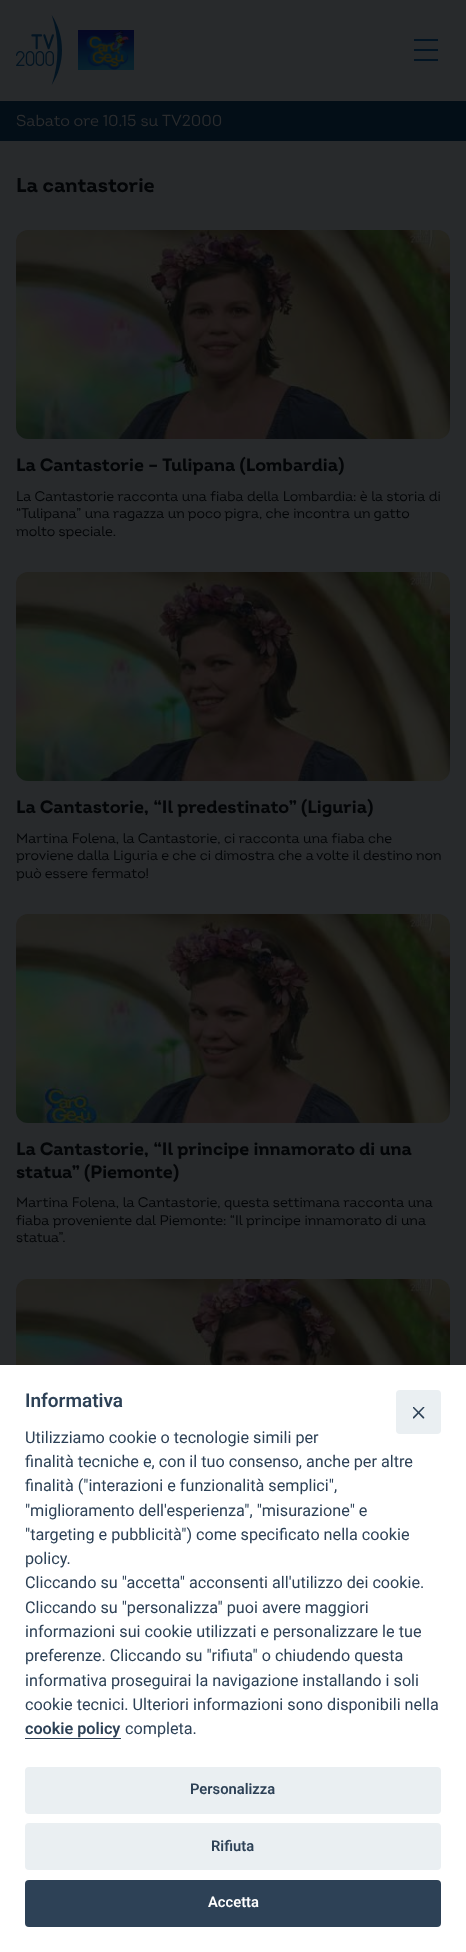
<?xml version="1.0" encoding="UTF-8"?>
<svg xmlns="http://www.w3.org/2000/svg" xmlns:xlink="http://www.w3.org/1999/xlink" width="466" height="1952">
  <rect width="100%" height="100%" fill="#030e17" />
  <rect width="466" height="100" fill="#282a2c" />
  <image x="16" y="15" width="46" height="70" xlink:href="image1.png" />
  <image x="78" y="30" width="56" height="40" xlink:href="image2.png" />
  <rect x="414" y="39" width="24" height="2" fill="#031422" />
  <rect x="414" y="49" width="24" height="2" fill="#031422" />
  <rect x="414" y="59" width="24" height="2" fill="#031422" />
  <rect y="100" width="466" height="1" fill="#2a2b2d" />
  <rect y="141" width="466" height="1224" fill="#282a2c" />
  <image x="16" y="230" width="434" height="209" xlink:href="image3.png" />
  <image x="16" y="572" width="434" height="209" xlink:href="image4.png" />
  <image x="16" y="914" width="434" height="209" xlink:href="image5.png" />
  <image x="16" y="1279" width="434" height="86" xlink:href="image6.png" />
  <rect y="1365" width="466" height="587" fill="#ffffff" />
  <rect x="396" y="1390" width="45" height="44" rx="4" fill="#eaeff2" />
  <path d="M 424 1407 c 0.5 0.5 0.5 1 0 1 l -10 10.5 c 0 0 -0.5 0 -1 0 c 0 -0.5 0 -1 0 -1.5 l 10 -10 c 0.5 0 1 0 1 0 z" fill="#2d4156" />
  <path d="M 413 1407 c 0.5 0 1 0 1 0 l 10 10 c 0.5 0.5 0.5 1 0 1.5 c 0 0 -0.5 0 -1 0 l -10 -10.5 c 0 0 0 -0.5 0 -1 z" fill="#2d4156" />
  <rect x="25" y="1738" width="96" height="1" fill="#2d4156" />
  <rect x="25" y="1767" width="416" height="47" rx="4" fill="#eaeff2" />
  <rect x="25" y="1823" width="416" height="47" rx="4" fill="#eaeff2" />
  <rect x="25" y="1880" width="416" height="47" rx="4" fill="#2d4156" />
  <text x="16" y="126" style="font-family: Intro; font-size: 16px; fill: #2a2b2d">Sabato ore 10.15 su TV2000</text>
  <text x="16" y="192" style="font-family: Intro; font-size: 20px; font-weight: bold; fill: #030507">La cantastorie</text>
  <text x="16" y="471" style="font-family: Intro; font-size: 18px; font-weight: bold; fill: #030507">La Cantastorie – Tulipana (Lombardia)</text>
  <text x="16" y="501" style="font-family: Intro; font-size: 14px; fill: #030507">La Cantastorie racconta una fiaba della Lombardia: è la storia di</text>
  <text x="16" y="518" style="font-family: Intro; font-size: 14px; fill: #030507">“Tulipana” una ragazza un poco pigra, che incontra un gatto</text>
  <text x="16" y="536" style="font-family: Intro; font-size: 14px; fill: #030507">molto speciale.</text>
  <text x="16" y="813" style="font-family: Intro; font-size: 18px; font-weight: bold; fill: #030507">La Cantastorie, “Il predestinato” (Liguria)</text>
  <text x="16" y="843" style="font-family: Intro; font-size: 14px; fill: #030507">Martina Folena, la Cantastorie, ci racconta una fiaba che</text>
  <text x="16" y="860" style="font-family: Intro; font-size: 14px; fill: #030507">proviene dalla Liguria e che ci dimostra che a volte il destino non</text>
  <text x="16" y="878" style="font-family: Intro; font-size: 14px; fill: #030507">può essere fermato!</text>
  <text x="16" y="1155" style="font-family: Intro; font-size: 18px; font-weight: bold; fill: #030507">La Cantastorie, “Il principe innamorato di una</text>
  <text x="16" y="1178" style="font-family: Intro; font-size: 18px; font-weight: bold; fill: #030507">statua” (Piemonte)</text>
  <text x="16" y="1207" style="font-family: Intro; font-size: 14px; fill: #030507">Martina Folena, la Cantastorie, questa settimana racconta una</text>
  <text x="16" y="1225" style="font-family: Intro; font-size: 14px; fill: #030507">fiaba proveniente dal Piemonte: “Il principe innamorato di una</text>
  <text x="16" y="1242" style="font-family: Intro; font-size: 14px; fill: #030507">statua”.</text>
  <text x="25" y="1407" style="font-family: Roboto; font-size: 19px; font-weight: 600; fill: #2d4156">Informativa</text>
  <text x="25" y="1443" style="font-family: Roboto; font-size: 16.2px; fill: #2d4156">Utilizziamo cookie o tecnologie simili per</text>
  <text x="25" y="1467" style="font-family: Roboto; font-size: 16.2px; fill: #2d4156">finalità tecniche e, con il tuo consenso, anche per altre</text>
  <text x="25" y="1491" style="font-family: Roboto; font-size: 16.2px; fill: #2d4156">finalità ("interazioni e funzionalità semplici",</text>
  <text x="25" y="1516" style="font-family: Roboto; font-size: 16.2px; fill: #2d4156">"miglioramento dell'esperienza", "misurazione" e</text>
  <text x="25" y="1540" style="font-family: Roboto; font-size: 16.2px; fill: #2d4156">"targeting e pubblicità") come specificato nella cookie</text>
  <text x="25" y="1564" style="font-family: Roboto; font-size: 16.2px; fill: #2d4156">policy.</text>
  <text x="25" y="1588" style="font-family: Roboto; font-size: 16.2px; fill: #2d4156">Cliccando su "accetta" acconsenti all'utilizzo dei cookie.</text>
  <text x="25" y="1613" style="font-family: Roboto; font-size: 16.2px; fill: #2d4156">Cliccando su "personalizza" puoi avere maggiori</text>
  <text x="25" y="1637" style="font-family: Roboto; font-size: 16.2px; fill: #2d4156">informazioni sui cookie utilizzati e personalizzare le tue</text>
  <text x="25" y="1661" style="font-family: Roboto; font-size: 16.2px; fill: #2d4156">preferenze. Cliccando su "rifiuta" o chiudendo questa</text>
  <text x="25" y="1686" style="font-family: Roboto; font-size: 16.2px; fill: #2d4156">informativa proseguirai la navigazione installando i soli</text>
  <text x="25" y="1710" style="font-family: Roboto; font-size: 16.2px; fill: #2d4156">cookie tecnici. Ulteriori informazioni sono disponibili nella</text>
  <text x="25" y="1734" style="font-family: Roboto; font-size: 16.2px; font-weight: 600; fill: #2d4156">cookie policy</text>
  <text x="125" y="1734" style="font-family: Roboto; font-size: 16.2px; fill: #2d4156">completa.</text>
  <text x="190" y="1794" style="font-family: Roboto; font-size: 14.75px; font-weight: 600; fill: #2d4156">Personalizza</text>
  <text x="211" y="1851" style="font-family: Roboto; font-size: 14.75px; font-weight: 600; fill: #2d4156">Rifiuta</text>
  <text x="208" y="1907" style="font-family: Roboto; font-size: 14.75px; font-weight: 600; fill: #ffffff">Accetta</text>
</svg>
